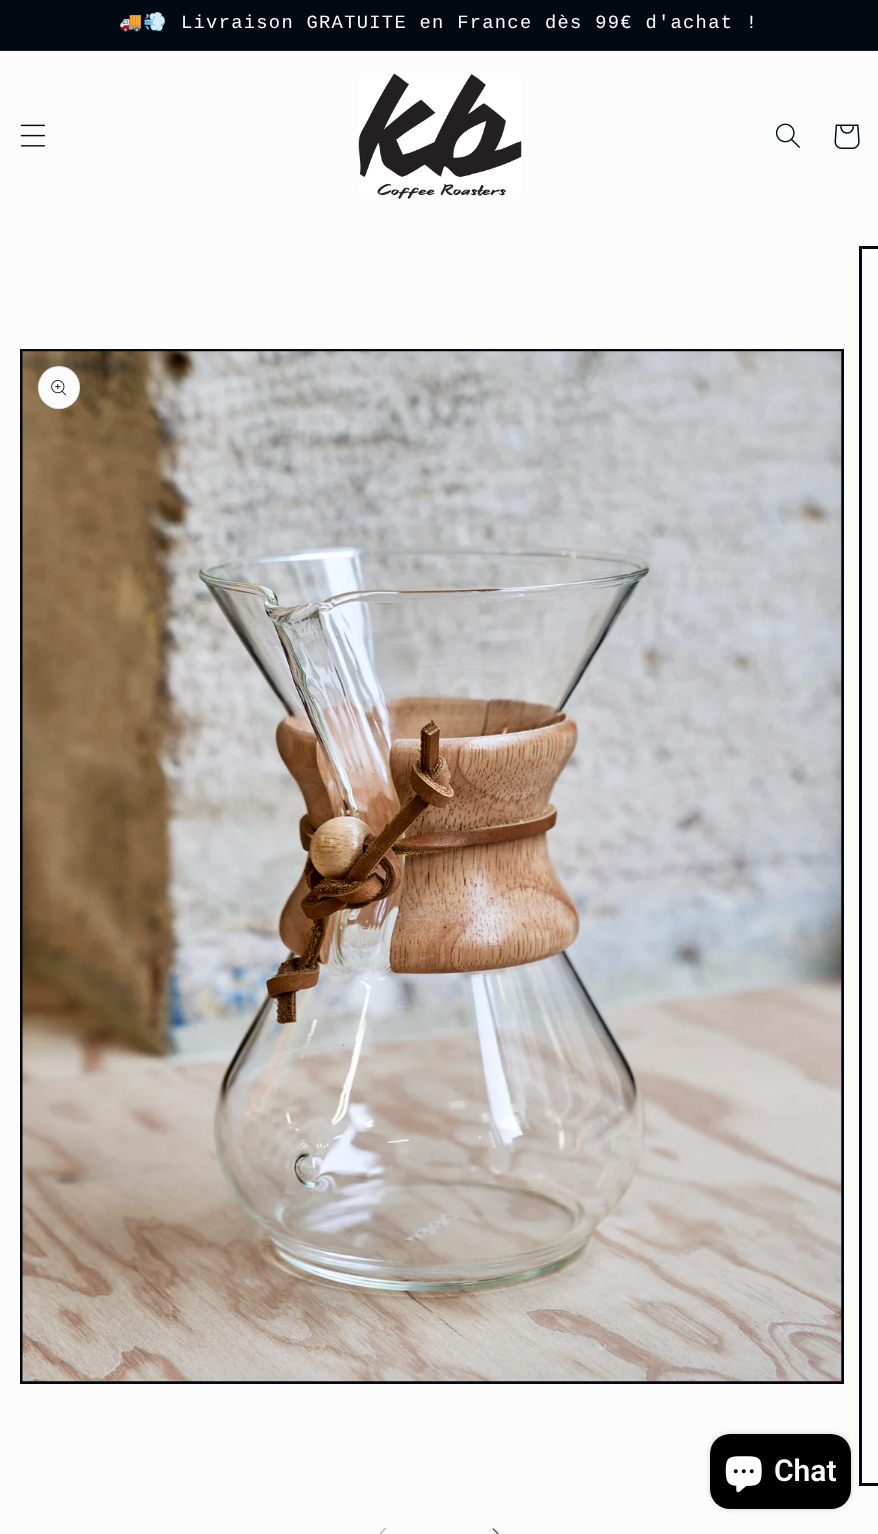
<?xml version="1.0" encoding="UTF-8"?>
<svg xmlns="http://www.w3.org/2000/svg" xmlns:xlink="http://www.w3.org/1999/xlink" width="878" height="1534">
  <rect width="100%" height="100%" fill="#fcfcfc" />
  <rect width="878" height="50" fill="#020912" />
  <rect y="50" width="878" height="1" fill="#161c25" />
  <image x="20" y="124" width="26" height="23" xlink:href="image1.png" />
  <image x="358" y="73" width="164" height="126" xlink:href="image2.png" />
  <image x="775" y="123" width="25" height="25" xlink:href="image3.png" />
  <image x="834" y="124" width="26" height="25" xlink:href="image4.png" />
  <rect x="21.5" y="350.5" width="821" height="1032" fill="none" stroke="#020912" stroke-width="3" />
  <image x="22" y="351" width="820" height="1031" xlink:href="image5.png" />
  <rect x="38" y="366" width="42" height="43" rx="21" fill="#fcfcfc" />
  <rect x="38.5" y="366.5" width="41" height="42" rx="20.5" fill="none" stroke="#020912" stroke-opacity="0.1" />
  <image x="51" y="380" width="15" height="16" xlink:href="image6.png" />
  <rect x="860.5" y="247.5" width="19" height="1237" fill="none" stroke="#020912" stroke-width="3" />
  <image x="379" y="1527" width="7" height="7" xlink:href="image7.png" />
  <image x="492" y="1528" width="7" height="6" xlink:href="image8.png" />
  <rect x="710" y="1434" width="141" height="75" rx="20" fill="#000000" fill-opacity="0.15" filter="blur(3px)" />
  <rect x="710" y="1434" width="141" height="75" rx="20" fill="#000000" />
  <image x="725" y="1456" width="37" height="37" xlink:href="image9.png" />
  <text x="119" y="28" style="font-family: Noto Color Emoji; font-size: 18.75px; letter-spacing: 1.3px; fill: #fcfcfc">🚚💨</text>
  <text x="181" y="28" style="font-family: Liberation Mono; font-size: 18.75px; letter-spacing: 1.3px; fill: #fcfcfc">Livraison GRATUITE en France dès 99€ d'achat !</text>
  <text x="774" y="1481" style="font-family: Roboto; font-size: 30px; font-weight: 600; fill: #fcfcfc">Chat</text>
</svg>
